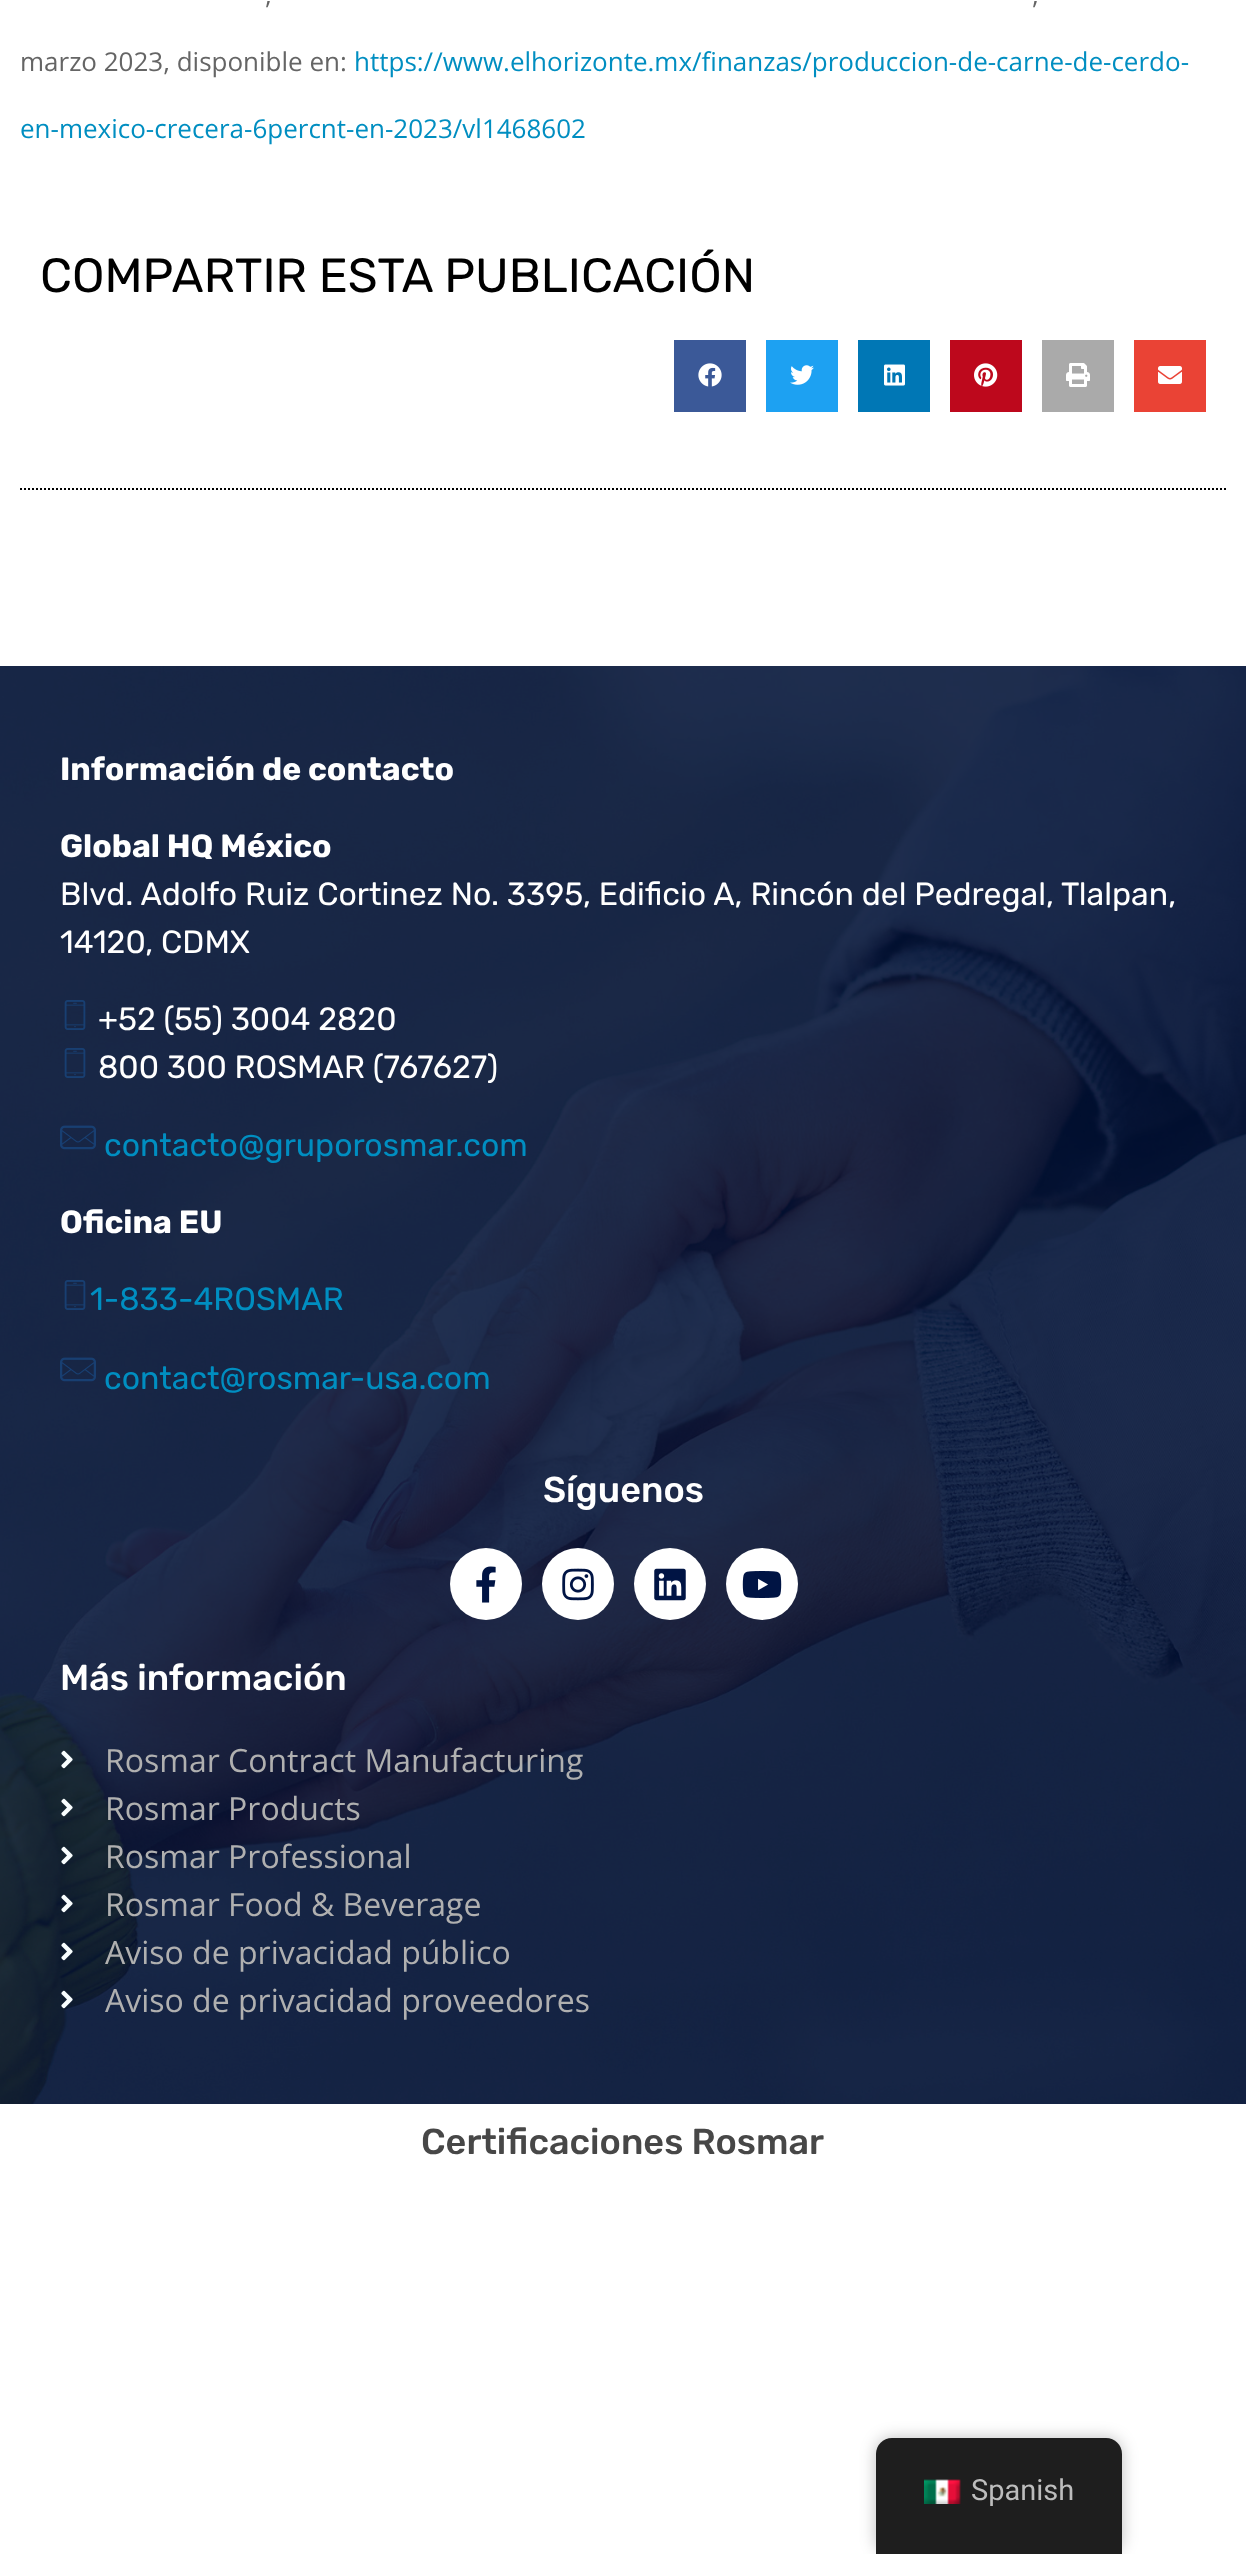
<?xml version="1.0" encoding="UTF-8"?>
<svg xmlns="http://www.w3.org/2000/svg" xmlns:xlink="http://www.w3.org/1999/xlink" width="1246" height="2554">
  <rect width="100%" height="100%" fill="#ffffff" />
  <rect x="674" y="340" width="72" height="72" fill="#3b5998" />
  <image x="698" y="363" width="24" height="24" xlink:href="image1.png" />
  <rect x="766" y="340" width="72" height="72" fill="#1da1f2" />
  <image x="790" y="365" width="24" height="20" xlink:href="image2.png" />
  <rect x="858" y="340" width="72" height="72" fill="#0077b5" />
  <image x="884" y="364" width="21" height="22" xlink:href="image3.png" />
  <rect x="950" y="340" width="72" height="72" fill="#bd081c" />
  <image x="974" y="363" width="24" height="24" xlink:href="image4.png" />
  <rect x="1042" y="340" width="72" height="72" fill="#aaaaaa" />
  <image x="1066" y="363" width="24" height="24" xlink:href="image5.png" />
  <rect x="1134" y="340" width="72" height="72" fill="#ea4335" />
  <image x="1158" y="366" width="24" height="18" xlink:href="image6.png" />
  <path d="M 20 489 h 1206" fill="none" stroke="#000000" stroke-width="2" stroke-dasharray="2 2" />
  <image x="0" y="666" width="1246" height="1438" xlink:href="image7.png" />
  <image x="64" y="1000" width="22" height="30" xlink:href="image8.png" />
  <image x="64" y="1048" width="22" height="30" xlink:href="image9.png" />
  <image x="60" y="1125" width="36" height="25" xlink:href="image10.png" />
  <image x="64" y="1280" width="22" height="30" xlink:href="image11.png" />
  <image x="60" y="1357" width="36" height="25" xlink:href="image12.png" />
  <circle cx="486" cy="1584" r="36" fill="#ffffff" />
  <image x="476" y="1566" width="20" height="37" xlink:href="image13.png" />
  <circle cx="578" cy="1584" r="36" fill="#ffffff" />
  <image x="562" y="1568" width="32" height="33" xlink:href="image14.png" />
  <circle cx="670" cy="1584" r="36" fill="#ffffff" />
  <image x="654" y="1568" width="32" height="33" xlink:href="image15.png" />
  <circle cx="762" cy="1584" r="36" fill="#ffffff" />
  <image x="742" y="1571" width="40" height="27" xlink:href="image16.png" />
  <image x="61" y="1750" width="12" height="19" xlink:href="image17.png" />
  <image x="61" y="1798" width="12" height="19" xlink:href="image18.png" />
  <image x="61" y="1846" width="12" height="19" xlink:href="image19.png" />
  <image x="61" y="1894" width="12" height="19" xlink:href="image20.png" />
  <image x="61" y="1942" width="12" height="19" xlink:href="image21.png" />
  <image x="61" y="1990" width="12" height="19" xlink:href="image22.png" />
  <rect x="876" y="2438" width="246" height="116" rx="16" fill="#000000" fill-opacity="0.25" filter="blur(8px)" />
  <path d="M 892 2438 h 214 c 9 0 16 7 16 16 v 100 h -246 v -100 c 0 -9 7 -16 16 -16 z" fill="#1e1e1e" />
  <image x="924" y="2479" width="37" height="25" xlink:href="image23.png" />
  <text x="265" y="4" style="font-family: Open Sans; font-size: 26px; fill: #656565">,</text>
  <text x="1032" y="4" style="font-family: Open Sans; font-size: 26px; fill: #656565">,</text>
  <text x="20" y="71" style="font-family: Open Sans; font-size: 26px; fill: #656565">marzo 2023, disponible en:</text>
  <text x="354" y="71" style="font-family: Open Sans; font-size: 26px; fill: #008ec1">https://www.elhorizonte.mx/finanzas/produccion-de-carne-de-cerdo-</text>
  <text x="20" y="138" style="font-family: Open Sans; font-size: 26px; fill: #008ec1">en-mexico-crecera-6percnt-en-2023/vl1468602</text>
  <text x="40" y="292" style="font-family: Rubik; font-size: 48px; fill: #000000">COMPARTIR ESTA PUBLICACIÓN</text>
  <text x="60" y="780" style="font-family: Rubik; font-size: 32px; font-weight: bold; fill: #ffffff">Información de contacto</text>
  <text x="60" y="857" style="font-family: Rubik; font-size: 32px; font-weight: bold; fill: #ffffff">Global HQ México</text>
  <text x="60" y="905" style="font-family: Rubik; font-size: 32px; fill: #ffffff">Blvd. Adolfo Ruiz Cortinez No. 3395, Edificio A, Rincón del Pedregal, Tlalpan,</text>
  <text x="60" y="953" style="font-family: Rubik; font-size: 32px; fill: #ffffff">14120, CDMX</text>
  <text x="98" y="1030" style="font-family: Rubik; font-size: 32px; fill: #ffffff">+52 (55) 3004 2820</text>
  <text x="98" y="1078" style="font-family: Rubik; font-size: 32px; fill: #ffffff">800 300 ROSMAR (767627)</text>
  <text x="104" y="1156" style="font-family: Rubik; font-size: 32px; fill: #008ec1">contacto@gruporosmar.com</text>
  <text x="60" y="1233" style="font-family: Rubik; font-size: 32px; font-weight: bold; fill: #ffffff">Oficina EU</text>
  <text x="90" y="1310" style="font-family: Rubik; font-size: 32px; fill: #008ec1">1-833-4ROSMAR</text>
  <text x="104" y="1389" style="font-family: Rubik; font-size: 32px; fill: #008ec1">contact@rosmar-usa.com</text>
  <text x="543" y="1502" style="font-family: Rubik; font-size: 36px; font-weight: 500; fill: #ffffff">Síguenos</text>
  <text x="60" y="1690" style="font-family: Rubik; font-size: 36px; font-weight: 500; fill: #ffffff">Más información</text>
  <text x="105" y="1772" style="font-family: Open Sans; font-size: 32px; fill: #b0b0b0">Rosmar Contract Manufacturing</text>
  <text x="105" y="1820" style="font-family: Open Sans; font-size: 32px; fill: #b0b0b0">Rosmar Products</text>
  <text x="105" y="1868" style="font-family: Open Sans; font-size: 32px; fill: #b0b0b0">Rosmar Professional</text>
  <text x="105" y="1916" style="font-family: Open Sans; font-size: 32px; fill: #b0b0b0">Rosmar Food &amp; Beverage</text>
  <text x="105" y="1964" style="font-family: Open Sans; font-size: 32px; fill: #b0b0b0">Aviso de privacidad público</text>
  <text x="105" y="2012" style="font-family: Open Sans; font-size: 32px; fill: #b0b0b0">Aviso de privacidad proveedores</text>
  <text x="421" y="2154" style="font-family: Rubik; font-size: 36px; font-weight: 500; fill: #474747">Certificaciones Rosmar</text>
  <text x="971" y="2500" style="font-family: Roboto; font-size: 29px; fill: #bdbdbd">Spanish</text>
</svg>
